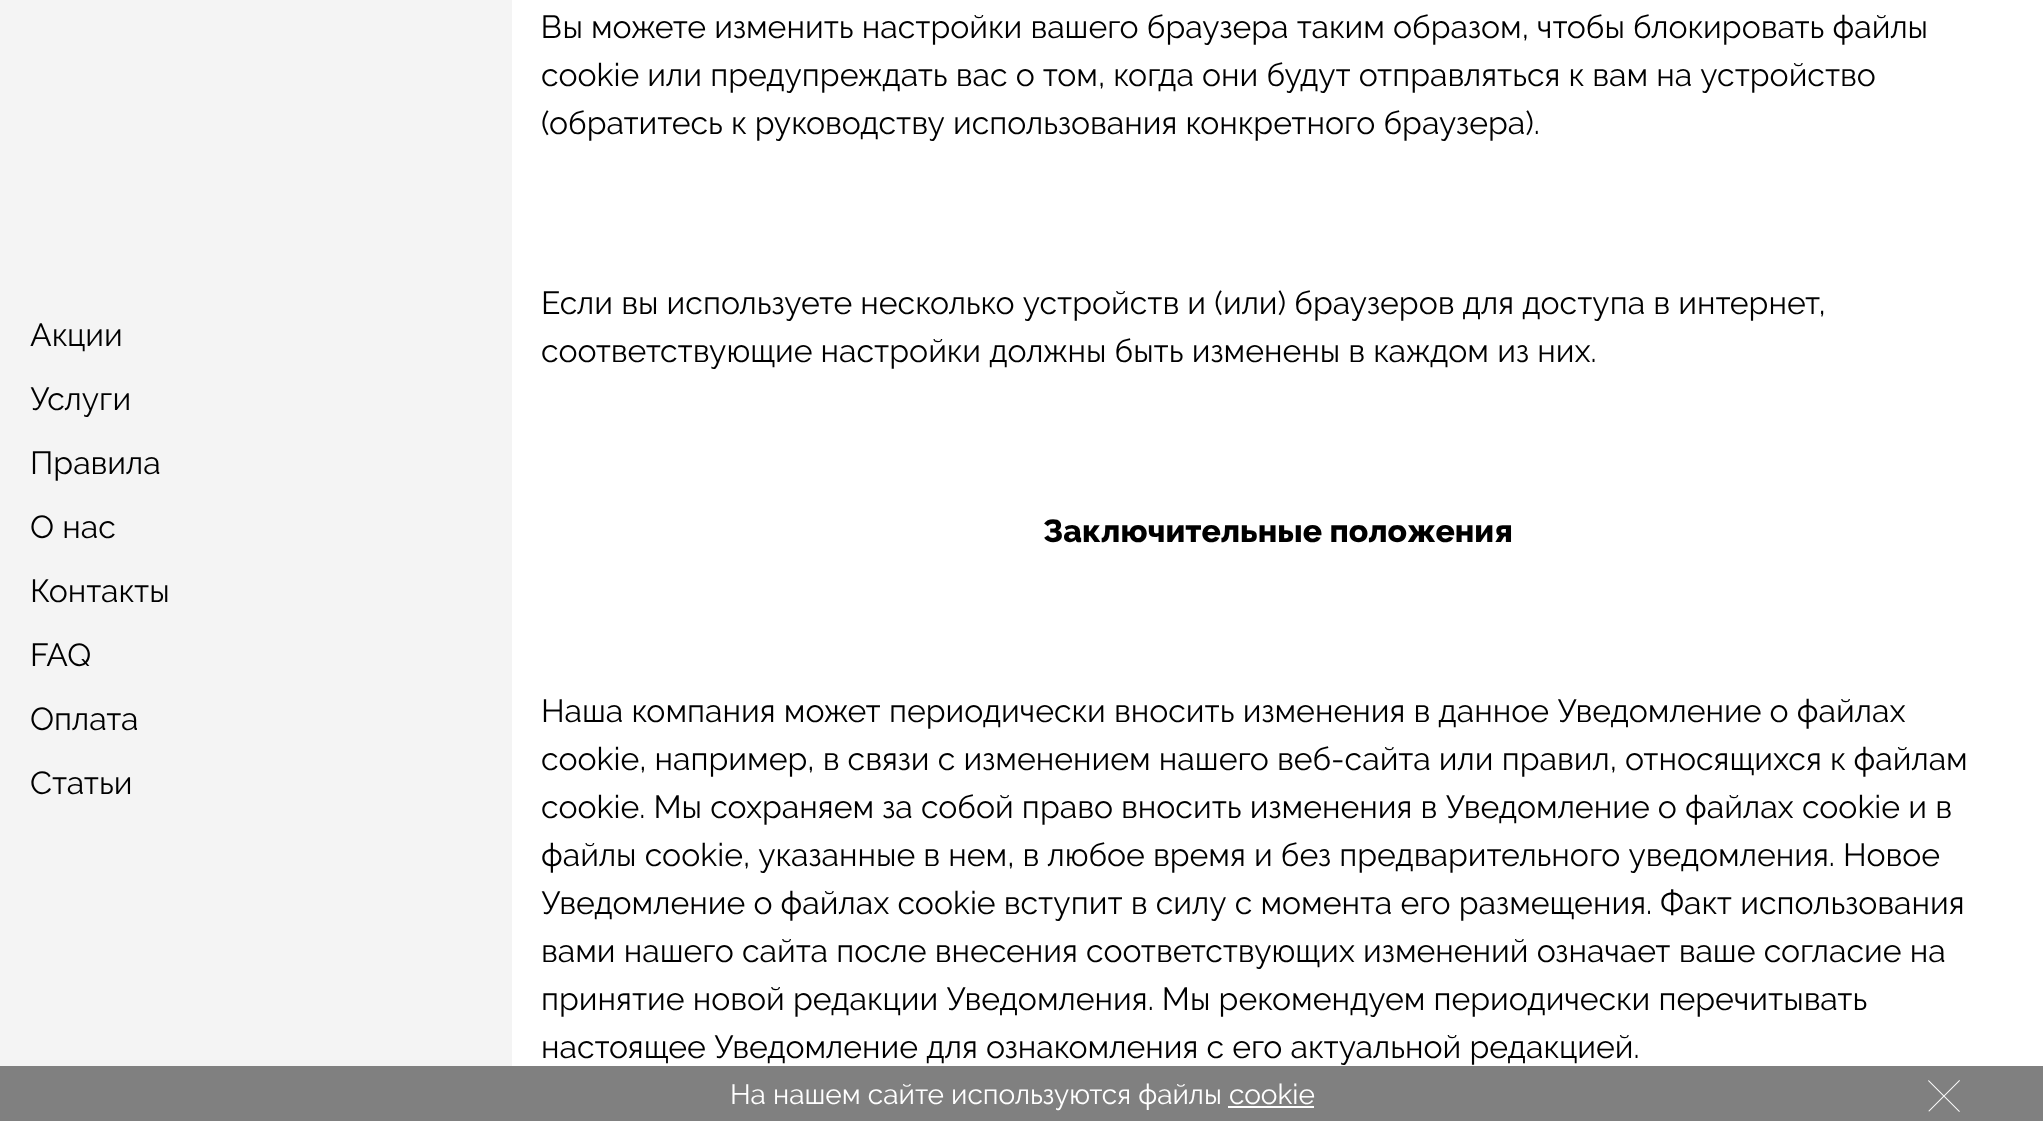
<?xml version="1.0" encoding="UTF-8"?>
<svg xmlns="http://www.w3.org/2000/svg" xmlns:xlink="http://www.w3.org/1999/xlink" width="2043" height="1121">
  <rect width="100%" height="100%" fill="#ffffff" />
  <rect width="512" height="1066" fill="#f4f4f4" />
  <rect y="1066" width="2043" height="55" fill="#808080" />
  <rect x="1228" y="1106" width="86" height="2" fill="#ffffff" />
  <image x="1928" y="1080" width="32" height="32" xlink:href="image1.png" />
  <text x="30" y="346" style="font-family: Raleway; font-size: 32px; fill: #000000">Акции</text>
  <text x="30" y="410" style="font-family: Raleway; font-size: 32px; fill: #000000">Услуги</text>
  <text x="30" y="474" style="font-family: Raleway; font-size: 32px; fill: #000000">Правила</text>
  <text x="30" y="538" style="font-family: Raleway; font-size: 32px; fill: #000000">О нас</text>
  <text x="30" y="602" style="font-family: Raleway; font-size: 32px; fill: #000000">Контакты</text>
  <text x="30" y="666" style="font-family: Raleway; font-size: 32px; fill: #000000">FAQ</text>
  <text x="30" y="730" style="font-family: Raleway; font-size: 32px; fill: #000000">Оплата</text>
  <text x="30" y="794" style="font-family: Raleway; font-size: 32px; fill: #000000">Статьи</text>
  <text x="541" y="38" style="font-family: Raleway; font-size: 32px; fill: #000000">Вы можете изменить настройки вашего браузера таким образом, чтобы блокировать файлы</text>
  <text x="541" y="86" style="font-family: Raleway; font-size: 32px; fill: #000000">cookie или предупреждать вас о том, когда они будут отправляться к вам на устройство</text>
  <text x="541" y="134" style="font-family: Raleway; font-size: 32px; fill: #000000">(обратитесь к руководству использования конкретного браузера).</text>
  <text x="541" y="314" style="font-family: Raleway; font-size: 32px; fill: #000000">Если вы используете несколько устройств и (или) браузеров для доступа в интернет,</text>
  <text x="541" y="362" style="font-family: Raleway; font-size: 32px; fill: #000000">соответствующие настройки должны быть изменены в каждом из них.</text>
  <text x="1043" y="542" style="font-family: Raleway; font-size: 32px; font-weight: 800; fill: #000000">Заключительные положения</text>
  <text x="541" y="722" style="font-family: Raleway; font-size: 32px; fill: #000000">Наша компания может периодически вносить изменения в данное Уведомление о файлах</text>
  <text x="541" y="770" style="font-family: Raleway; font-size: 32px; fill: #000000">cookie, например, в связи с изменением нашего веб-сайта или правил, относящихся к файлам</text>
  <text x="541" y="818" style="font-family: Raleway; font-size: 32px; fill: #000000">cookie. Мы сохраняем за собой право вносить изменения в Уведомление о файлах cookie и в</text>
  <text x="541" y="866" style="font-family: Raleway; font-size: 32px; fill: #000000">файлы cookie, указанные в нем, в любое время и без предварительного уведомления. Новое</text>
  <text x="541" y="914" style="font-family: Raleway; font-size: 32px; fill: #000000">Уведомление о файлах cookie вступит в силу с момента его размещения. Факт использования</text>
  <text x="541" y="962" style="font-family: Raleway; font-size: 32px; fill: #000000">вами нашего сайта после внесения соответствующих изменений означает ваше согласие на</text>
  <text x="541" y="1010" style="font-family: Raleway; font-size: 32px; fill: #000000">принятие новой редакции Уведомления. Мы рекомендуем периодически перечитывать</text>
  <text x="541" y="1058" style="font-family: Raleway; font-size: 32px; fill: #000000">настоящее Уведомление для ознакомления с его актуальной редакцией.</text>
  <text x="730" y="1104" style="font-family: Raleway; font-size: 28px; fill: #ffffff">На нашем сайте используются файлы cookie</text>
</svg>
